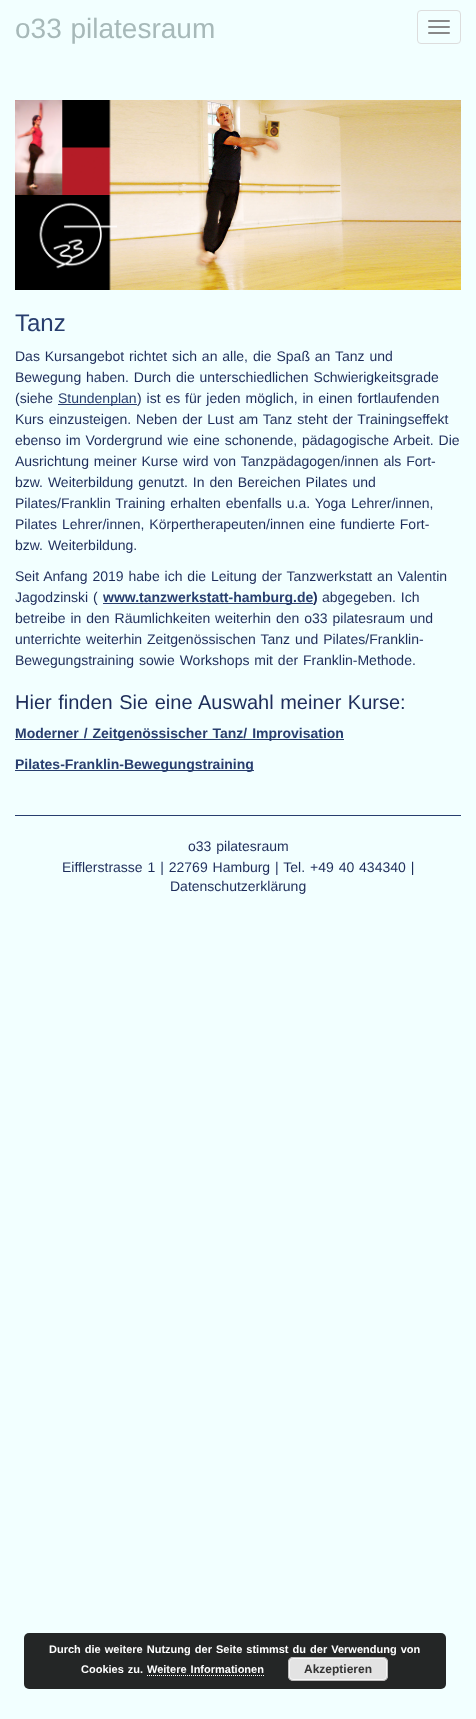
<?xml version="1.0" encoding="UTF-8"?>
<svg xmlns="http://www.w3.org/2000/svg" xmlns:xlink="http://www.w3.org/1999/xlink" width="476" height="1719">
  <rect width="100%" height="100%" fill="#f2ffff" />
  <image x="109" y="100" width="352" height="190" xlink:href="image1.png" />
  <image x="15" y="100" width="102" height="190" xlink:href="image2.png" />
  <rect x="417.5" y="10.5" width="43" height="33" rx="3.5" fill="none" stroke="#dddddd" />
  <rect x="428" y="20" width="22" height="2" rx="1" fill="#888888" />
  <rect x="428" y="26" width="22" height="2" rx="1" fill="#888888" />
  <rect x="428" y="32" width="22" height="2" rx="1" fill="#888888" />
  <rect x="58" y="404" width="79" height="1" fill="#283e6e" />
  <rect x="103" y="603" width="210" height="1" fill="#283e6e" />
  <rect x="15" y="739" width="329" height="1" fill="#283e6e" />
  <rect x="15" y="770" width="239" height="1" fill="#283e6e" />
  <rect x="15" y="815" width="446" height="1" fill="#283e6e" />
  <rect x="24" y="1633" width="422" height="56" rx="5" fill="#242626" />
  <path d="M 147 1675.5 h 117" fill="none" stroke="#ffffff" stroke-dasharray="1 1" />
  <rect x="288" y="1657" width="100" height="24" rx="5" fill="#e3e3e3" />
  <rect x="289.5" y="1658.5" width="97" height="21" rx="3.5" fill="none" stroke="#f6f6f6" />
  <rect x="288.5" y="1657.5" width="99" height="23" rx="4.5" fill="none" stroke="#bbbbbb" />
  <text x="15" y="38" word-spacing="1" style="font-family: Liberation Sans; font-size: 28px; fill: #a7b9b9">o33 pilatesraum</text>
  <text x="15" y="331" style="font-family: Liberation Sans; font-size: 24px; fill: #283e6e">Tanz</text>
  <text x="15" y="361" word-spacing="1" style="font-family: Liberation Sans; font-size: 14px; fill: #1e2d5a">Das Kursangebot richtet sich an alle, die Spaß an Tanz und</text>
  <text x="15" y="382" word-spacing="1" style="font-family: Liberation Sans; font-size: 14px; fill: #1e2d5a">Bewegung haben. Durch die unterschiedlichen Schwierigkeitsgrade</text>
  <text x="15" y="403" style="font-family: Liberation Sans; font-size: 14px; fill: #1e2d5a">(siehe</text>
  <text x="58" y="403" style="font-family: Liberation Sans; font-size: 14px; fill: #283e6e">Stundenplan</text>
  <text x="137" y="403" word-spacing="1" style="font-family: Liberation Sans; font-size: 14px; fill: #1e2d5a">) ist es für jeden möglich, in einen fortlaufenden</text>
  <text x="15" y="424" word-spacing="1" style="font-family: Liberation Sans; font-size: 14px; fill: #1e2d5a">Kurs einzusteigen. Neben der Lust am Tanz steht der Trainingseffekt</text>
  <text x="15" y="445" word-spacing="1" style="font-family: Liberation Sans; font-size: 14px; fill: #1e2d5a">ebenso im Vordergrund wie eine schonende, pädagogische Arbeit. Die</text>
  <text x="15" y="466" word-spacing="1" style="font-family: Liberation Sans; font-size: 14px; fill: #1e2d5a">Ausrichtung meiner Kurse wird von Tanzpädagogen/innen als Fort-</text>
  <text x="15" y="487" word-spacing="1" style="font-family: Liberation Sans; font-size: 14px; fill: #1e2d5a">bzw. Weiterbildung genutzt. In den Bereichen Pilates und</text>
  <text x="15" y="508" word-spacing="1" style="font-family: Liberation Sans; font-size: 14px; fill: #1e2d5a">Pilates/Franklin Training erhalten ebenfalls u.a. Yoga Lehrer/innen,</text>
  <text x="15" y="529" word-spacing="1" style="font-family: Liberation Sans; font-size: 14px; fill: #1e2d5a">Pilates Lehrer/innen, Körpertherapeuten/innen eine fundierte Fort-</text>
  <text x="15" y="550" word-spacing="1" style="font-family: Liberation Sans; font-size: 14px; fill: #1e2d5a">bzw. Weiterbildung.</text>
  <text x="15" y="581" word-spacing="1" style="font-family: Liberation Sans; font-size: 14px; fill: #1e2d5a">Seit Anfang 2019 habe ich die Leitung der Tanzwerkstatt an Valentin</text>
  <text x="15" y="602" word-spacing="1" style="font-family: Liberation Sans; font-size: 14px; fill: #1e2d5a">Jagodzinski (</text>
  <text x="103" y="602" style="font-family: Liberation Sans; font-size: 14px; font-weight: bold; fill: #283e6e">www.tanzwerkstatt-hamburg.de</text>
  <text x="313" y="602" style="font-family: Liberation Sans; font-size: 14px; font-weight: bold; fill: #1e2d5a">)</text>
  <text x="322" y="602" word-spacing="1" style="font-family: Liberation Sans; font-size: 14px; fill: #1e2d5a">abgegeben. Ich</text>
  <text x="15" y="623" word-spacing="1" style="font-family: Liberation Sans; font-size: 14px; fill: #1e2d5a">betreibe in den Räumlichkeiten weiterhin den o33 pilatesraum und</text>
  <text x="15" y="644" word-spacing="1" style="font-family: Liberation Sans; font-size: 14px; fill: #1e2d5a">unterrichte weiterhin Zeitgenössischen Tanz und Pilates/Franklin-</text>
  <text x="15" y="665" word-spacing="1" style="font-family: Liberation Sans; font-size: 14px; fill: #1e2d5a">Bewegungstraining sowie Workshops mit der Franklin-Methode.</text>
  <text x="15" y="709" word-spacing="1" style="font-family: Liberation Sans; font-size: 20px; fill: #1e2d5a">Hier finden Sie eine Auswahl meiner Kurse:</text>
  <text x="15" y="738" word-spacing="1" style="font-family: Liberation Sans; font-size: 14px; font-weight: bold; fill: #283e6e">Moderner / Zeitgenössischer Tanz/ Improvisation</text>
  <text x="15" y="769" style="font-family: Liberation Sans; font-size: 14px; font-weight: bold; fill: #283e6e">Pilates-Franklin-Bewegungstraining</text>
  <text x="188" y="851" word-spacing="1" style="font-family: Liberation Sans; font-size: 14px; fill: #1e2d5a">o33 pilatesraum</text>
  <text x="62" y="872" word-spacing="1" style="font-family: Liberation Sans; font-size: 14px; fill: #1e2d5a">Eifflerstrasse 1 | 22769 Hamburg | Tel. +49 40 434340 |</text>
  <text x="170" y="891" style="font-family: Liberation Sans; font-size: 14px; fill: #1e2d5a">Datenschutzerklärung</text>
  <text x="49" y="1653" word-spacing="1" style="font-family: Liberation Sans; font-size: 11px; font-weight: bold; fill: #ffffff">Durch die weitere Nutzung der Seite stimmst du der Verwendung von</text>
  <text x="81" y="1673" word-spacing="1" style="font-family: Liberation Sans; font-size: 11px; font-weight: bold; fill: #ffffff">Cookies zu.</text>
  <text x="147" y="1673" word-spacing="1" style="font-family: Liberation Sans; font-size: 11px; font-weight: bold; fill: #ffffff">Weitere Informationen</text>
  <text x="304" y="1673" style="font-family: Liberation Sans; font-size: 12px; font-weight: bold; fill: #333333">Akzeptieren</text>
</svg>
